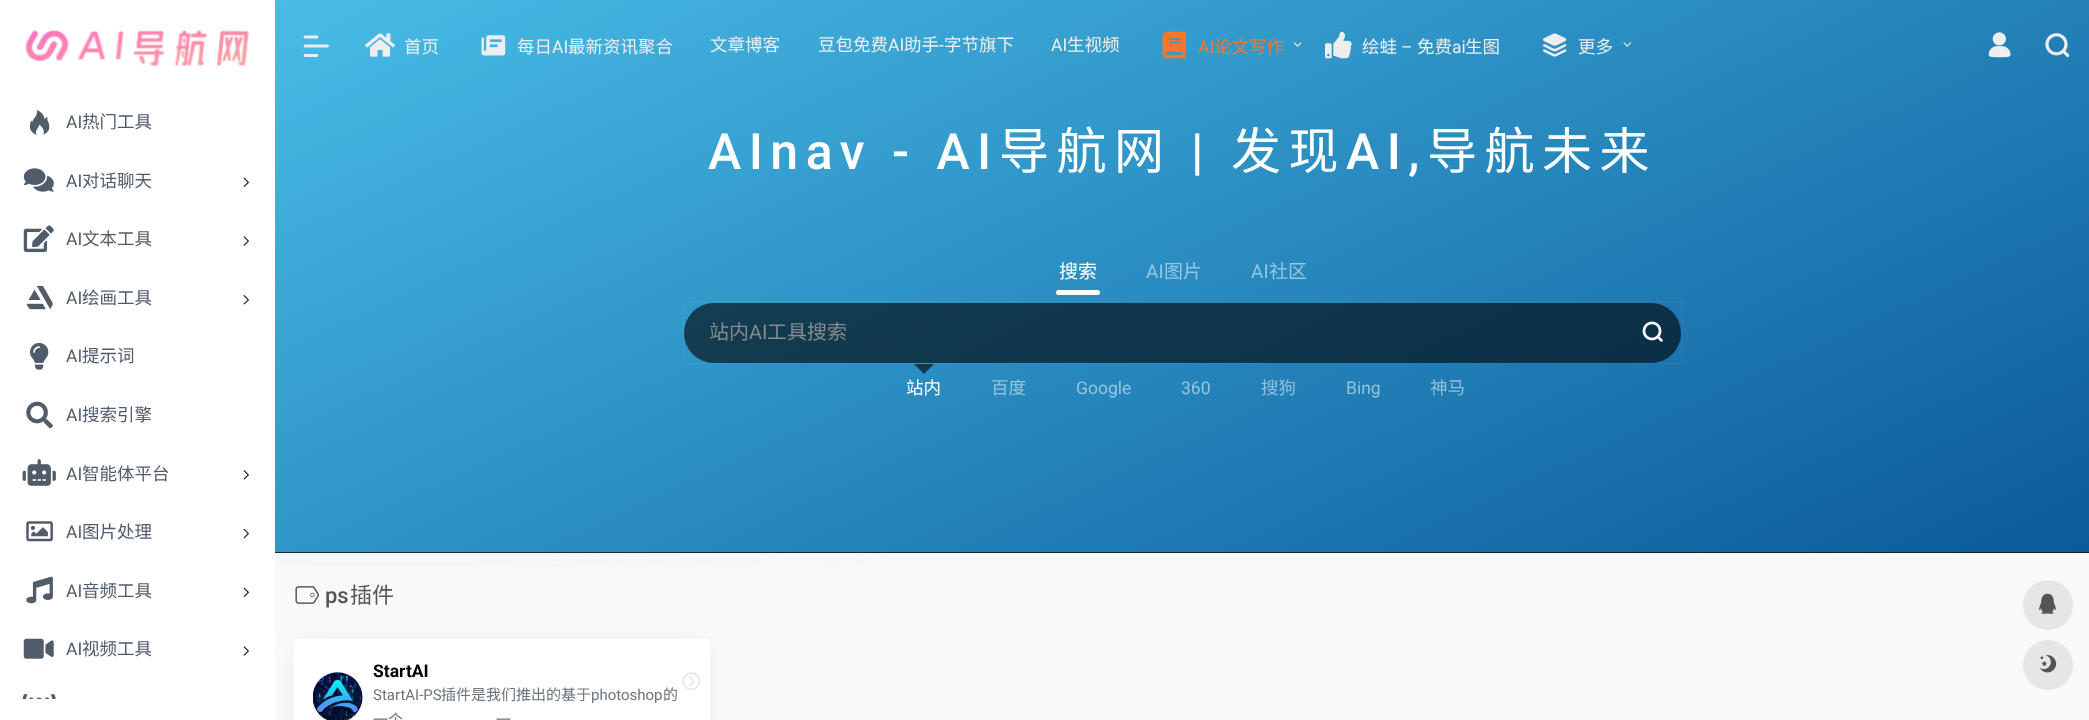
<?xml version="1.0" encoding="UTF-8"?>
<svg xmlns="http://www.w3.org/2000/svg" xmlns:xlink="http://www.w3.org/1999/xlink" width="2089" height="720">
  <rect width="100%" height="100%" fill="#f9f9f9" />
  <rect x="300" y="645" width="404" height="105" fill="#9e9e9e" fill-opacity="0.2" filter="blur(12.5px)" />
  <rect width="275" height="720" fill="#ffffff" />
  <image x="25" y="30" width="225" height="37" xlink:href="image1.png" />
  <image x="29" y="110" width="21" height="25" xlink:href="image2.png" />
  <image x="23" y="168" width="31" height="24" xlink:href="image3.png" />
  <image x="243" y="177" width="6" height="10" xlink:href="image4.png" />
  <image x="23" y="225" width="31" height="28" xlink:href="image5.png" />
  <image x="243" y="236" width="6" height="10" xlink:href="image6.png" />
  <image x="26" y="285" width="27" height="25" xlink:href="image7.png" />
  <image x="243" y="295" width="6" height="10" xlink:href="image8.png" />
  <image x="30" y="342" width="19" height="28" xlink:href="image9.png" />
  <image x="26" y="401" width="27" height="28" xlink:href="image10.png" />
  <image x="22" y="459" width="34" height="27" xlink:href="image11.png" />
  <image x="243" y="470" width="6" height="10" xlink:href="image12.png" />
  <image x="26" y="521" width="27" height="21" xlink:href="image13.png" />
  <image x="243" y="528" width="6" height="11" xlink:href="image14.png" />
  <image x="26" y="576" width="27" height="28" xlink:href="image15.png" />
  <image x="243" y="587" width="6" height="10" xlink:href="image16.png" />
  <image x="23" y="638" width="31" height="21" xlink:href="image17.png" />
  <image x="243" y="646" width="6" height="10" xlink:href="image18.png" />
  <image x="22" y="694" width="34" height="5" xlink:href="image19.png" />
  <rect x="275" y="552" width="1814" height="1" fill="#1b1d1f" />
  <image x="275" y="0" width="1814" height="553" xlink:href="image29.png" />
  <path d="M 305 37 h 12 m -12 9 h 22.5 m -22.5 9.5 h 12" fill="none" stroke="#eeeeee" stroke-width="2.8" stroke-linecap="round" stroke-linejoin="round" />
  <image x="365" y="33" width="30" height="24" xlink:href="image20.png" />
  <image x="481" y="35" width="25" height="21" xlink:href="image21.png" />
  <image x="1162" y="31" width="24" height="28" xlink:href="image22.png" />
  <image x="1293" y="42" width="9" height="5" xlink:href="image23.png" />
  <image x="1325" y="31" width="27" height="28" xlink:href="image24.png" />
  <image x="1543" y="33" width="24" height="24" xlink:href="image25.png" />
  <image x="1623" y="42" width="8" height="5" xlink:href="image26.png" />
  <image x="1988" y="32" width="23" height="26" xlink:href="image27.png" />
  <image x="2045" y="33" width="25" height="25" xlink:href="image28.png" />
  <rect x="1056" y="290" width="44" height="5" rx="2.5" fill="#ffffff" />
  <rect x="684" y="303" width="997" height="60" rx="30" fill="#000000" fill-opacity="0.6" />
  <rect x="683.5" y="301.5" width="999" height="62" fill="none" stroke="#ffffff" stroke-opacity="0.05" />
  <image x="1642" y="321" width="21" height="21" xlink:href="image30.png" />
  <path d="M 914 364 h 20 l -10 10 z" fill="#11384d" />
  <image x="295" y="586" width="24" height="18" xlink:href="image31.png" />
  <rect x="294" y="639" width="416" height="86" rx="5" fill="#ffffff" />
  <image x="313" y="672" width="50" height="48" xlink:href="image32.png" />
  <image x="682" y="672" width="18" height="18" xlink:href="image33.png" />
  <image x="275" y="553" width="1814" height="14" xlink:href="image34.png" />
  <circle cx="2048" cy="605" r="25" fill="#e6e6e6" />
  <image x="2039" y="593" width="17" height="21" xlink:href="image35.png" />
  <circle cx="2048" cy="665" r="25" fill="#e6e6e6" />
  <image x="2039" y="655" width="18" height="18" xlink:href="image36.png" />
  <text x="66" y="128" style="font-family: Roboto; font-size: 17.5px; fill: #515c6b">AI</text>
  <text x="82" y="128" style="font-family: Noto Sans CJK SC; font-size: 17.5px; fill: #515c6b">热门工具</text>
  <text x="66" y="187" style="font-family: Roboto; font-size: 17.5px; fill: #515c6b">AI</text>
  <text x="82" y="187" style="font-family: Noto Sans CJK SC; font-size: 17.5px; fill: #515c6b">对话聊天</text>
  <text x="66" y="245" style="font-family: Roboto; font-size: 17.5px; fill: #515c6b">AI</text>
  <text x="82" y="245" style="font-family: Noto Sans CJK SC; font-size: 17.5px; fill: #515c6b">文本工具</text>
  <text x="66" y="304" style="font-family: Roboto; font-size: 17.5px; fill: #515c6b">AI</text>
  <text x="82" y="304" style="font-family: Noto Sans CJK SC; font-size: 17.5px; fill: #515c6b">绘画工具</text>
  <text x="66" y="362" style="font-family: Roboto; font-size: 17.5px; fill: #515c6b">AI</text>
  <text x="82" y="362" style="font-family: Noto Sans CJK SC; font-size: 17.5px; fill: #515c6b">提示词</text>
  <text x="66" y="421" style="font-family: Roboto; font-size: 17.5px; fill: #515c6b">AI</text>
  <text x="82" y="421" style="font-family: Noto Sans CJK SC; font-size: 17.5px; fill: #515c6b">搜索引擎</text>
  <text x="66" y="480" style="font-family: Roboto; font-size: 17.5px; fill: #515c6b">AI</text>
  <text x="82" y="480" style="font-family: Noto Sans CJK SC; font-size: 17.5px; fill: #515c6b">智能体平台</text>
  <text x="66" y="538" style="font-family: Roboto; font-size: 17.5px; fill: #515c6b">AI</text>
  <text x="82" y="538" style="font-family: Noto Sans CJK SC; font-size: 17.5px; fill: #515c6b">图片处理</text>
  <text x="66" y="597" style="font-family: Roboto; font-size: 17.5px; fill: #515c6b">AI</text>
  <text x="82" y="597" style="font-family: Noto Sans CJK SC; font-size: 17.5px; fill: #515c6b">音频工具</text>
  <text x="66" y="655" style="font-family: Roboto; font-size: 17.5px; fill: #515c6b">AI</text>
  <text x="82" y="655" style="font-family: Noto Sans CJK SC; font-size: 17.5px; fill: #515c6b">视频工具</text>
  <text x="404" y="53" style="font-family: Noto Sans CJK SC; font-size: 17.5px; fill: #eeeeee">首页</text>
  <text x="517" y="53" style="font-family: Noto Sans CJK SC; font-size: 17.5px; fill: #eeeeee">每日</text>
  <text x="552" y="53" style="font-family: Roboto; font-size: 17.5px; fill: #eeeeee">AI</text>
  <text x="568" y="53" style="font-family: Noto Sans CJK SC; font-size: 17.5px; fill: #eeeeee">最新资讯聚合</text>
  <text x="710" y="51" style="font-family: Noto Sans CJK SC; font-size: 17.5px; fill: #eeeeee">文章博客</text>
  <text x="818" y="51" style="font-family: Noto Sans CJK SC; font-size: 17.5px; fill: #eeeeee">豆包免费</text>
  <text x="888" y="51" style="font-family: Roboto; font-size: 17.5px; fill: #eeeeee">AI</text>
  <text x="904" y="51" style="font-family: Noto Sans CJK SC; font-size: 17.5px; fill: #eeeeee">助手</text>
  <text x="939" y="51" style="font-family: Roboto; font-size: 17.5px; fill: #eeeeee">-</text>
  <text x="944" y="51" style="font-family: Noto Sans CJK SC; font-size: 17.5px; fill: #eeeeee">字节旗下</text>
  <text x="1051" y="51" style="font-family: Roboto; font-size: 17.5px; fill: #eeeeee">AI</text>
  <text x="1067" y="51" style="font-family: Noto Sans CJK SC; font-size: 17.5px; fill: #eeeeee">生视频</text>
  <text x="1198" y="53" style="font-family: Roboto; font-size: 17.5px; fill: #f7762a">AI</text>
  <text x="1214" y="53" style="font-family: Noto Sans CJK SC; font-size: 17.5px; fill: #f7762a">论文写作</text>
  <text x="1362" y="53" style="font-family: Noto Sans CJK SC; font-size: 17.5px; fill: #eeeeee">绘蛙</text>
  <text x="1401" y="53" style="font-family: Roboto; font-size: 17.5px; fill: #eeeeee">–</text>
  <text x="1417" y="53" style="font-family: Noto Sans CJK SC; font-size: 17.5px; fill: #eeeeee">免费</text>
  <text x="1452" y="53" style="font-family: Roboto; font-size: 17.5px; fill: #eeeeee">ai</text>
  <text x="1465" y="53" style="font-family: Noto Sans CJK SC; font-size: 17.5px; fill: #eeeeee">生图</text>
  <text x="1578" y="53" style="font-family: Noto Sans CJK SC; font-size: 17.5px; fill: #eeeeee">更多</text>
  <text x="708" y="169" style="font-family: Roboto; font-size: 50px; font-weight: 500; letter-spacing: 7.5px; fill: #ffffff">AInav - AI</text>
  <text x="999" y="169" style="font-family: Noto Sans CJK SC; font-size: 50px; letter-spacing: 7.5px; fill: #ffffff">导航网</text>
  <text x="1191" y="169" style="font-family: Roboto; font-size: 50px; font-weight: 500; letter-spacing: 7.5px; fill: #ffffff">|</text>
  <text x="1231" y="169" style="font-family: Noto Sans CJK SC; font-size: 50px; letter-spacing: 7.5px; fill: #ffffff">发现</text>
  <text x="1346" y="169" style="font-family: Roboto; font-size: 50px; font-weight: 500; letter-spacing: 7.5px; fill: #ffffff">AI,</text>
  <text x="1427" y="169" style="font-family: Noto Sans CJK SC; font-size: 50px; letter-spacing: 7.5px; fill: #ffffff">导航未来</text>
  <text x="1059" y="278" style="font-family: Noto Sans CJK SC; font-size: 19px; fill: #ffffff">搜索</text>
  <text x="1146" y="278" style="font-family: Roboto; font-size: 19px; fill: #95c6e0">AI</text>
  <text x="1164" y="278" style="font-family: Noto Sans CJK SC; font-size: 19px; fill: #95c6e0">图片</text>
  <text x="1251" y="278" style="font-family: Roboto; font-size: 19px; fill: #95c6e0">AI</text>
  <text x="1269" y="278" style="font-family: Noto Sans CJK SC; font-size: 19px; fill: #95c6e0">社区</text>
  <text x="709" y="339" style="font-family: Noto Sans CJK SC; font-size: 20px; fill: #888a8f">站内</text>
  <text x="749" y="339" style="font-family: Roboto; font-size: 20px; fill: #888a8f">AI</text>
  <text x="767" y="339" style="font-family: Noto Sans CJK SC; font-size: 20px; fill: #888a8f">工具搜索</text>
  <text x="906" y="394" style="font-family: Noto Sans CJK SC; font-size: 17.5px; fill: #ffffff">站内</text>
  <text x="991" y="394" style="font-family: Noto Sans CJK SC; font-size: 17.5px; fill: #95c6e0">百度</text>
  <text x="1076" y="394" style="font-family: Roboto; font-size: 17.5px; fill: #95c6e0">Google</text>
  <text x="1181" y="394" style="font-family: Roboto; font-size: 17.5px; fill: #95c6e0">360</text>
  <text x="1261" y="394" style="font-family: Noto Sans CJK SC; font-size: 17.5px; fill: #91c0db">搜狗</text>
  <text x="1346" y="394" style="font-family: Roboto; font-size: 17.5px; fill: #91c0db">Bing</text>
  <text x="1430" y="394" style="font-family: Noto Sans CJK SC; font-size: 17.5px; fill: #91c0db">神马</text>
  <text x="325" y="603" style="font-family: Roboto; font-size: 22px; font-weight: 500; fill: #555555">ps</text>
  <text x="350" y="603" style="font-family: Noto Sans CJK SC; font-size: 22px; fill: #555555">插件</text>
  <text x="373" y="677" style="font-family: Roboto; font-size: 17.5px; font-weight: bold; fill: #000000">StartAI</text>
  <text x="373" y="700" style="font-family: Roboto; font-size: 15px; fill: #6c757d">StartAI-PS</text>
  <text x="441" y="700" style="font-family: Noto Sans CJK SC; font-size: 15px; fill: #6c757d">插件是我们推出的基于</text>
  <text x="591" y="700" style="font-family: Roboto; font-size: 15px; fill: #6c757d">photoshop</text>
  <text x="663" y="700" style="font-family: Noto Sans CJK SC; font-size: 15px; fill: #6c757d">的</text>
  <text x="373" y="725" style="font-family: Noto Sans CJK SC; font-size: 15px; fill: #6c757d">一个</text>
  <text x="496" y="725" style="font-family: Noto Sans CJK SC; font-size: 15px; fill: #6c757d">一</text>
</svg>
